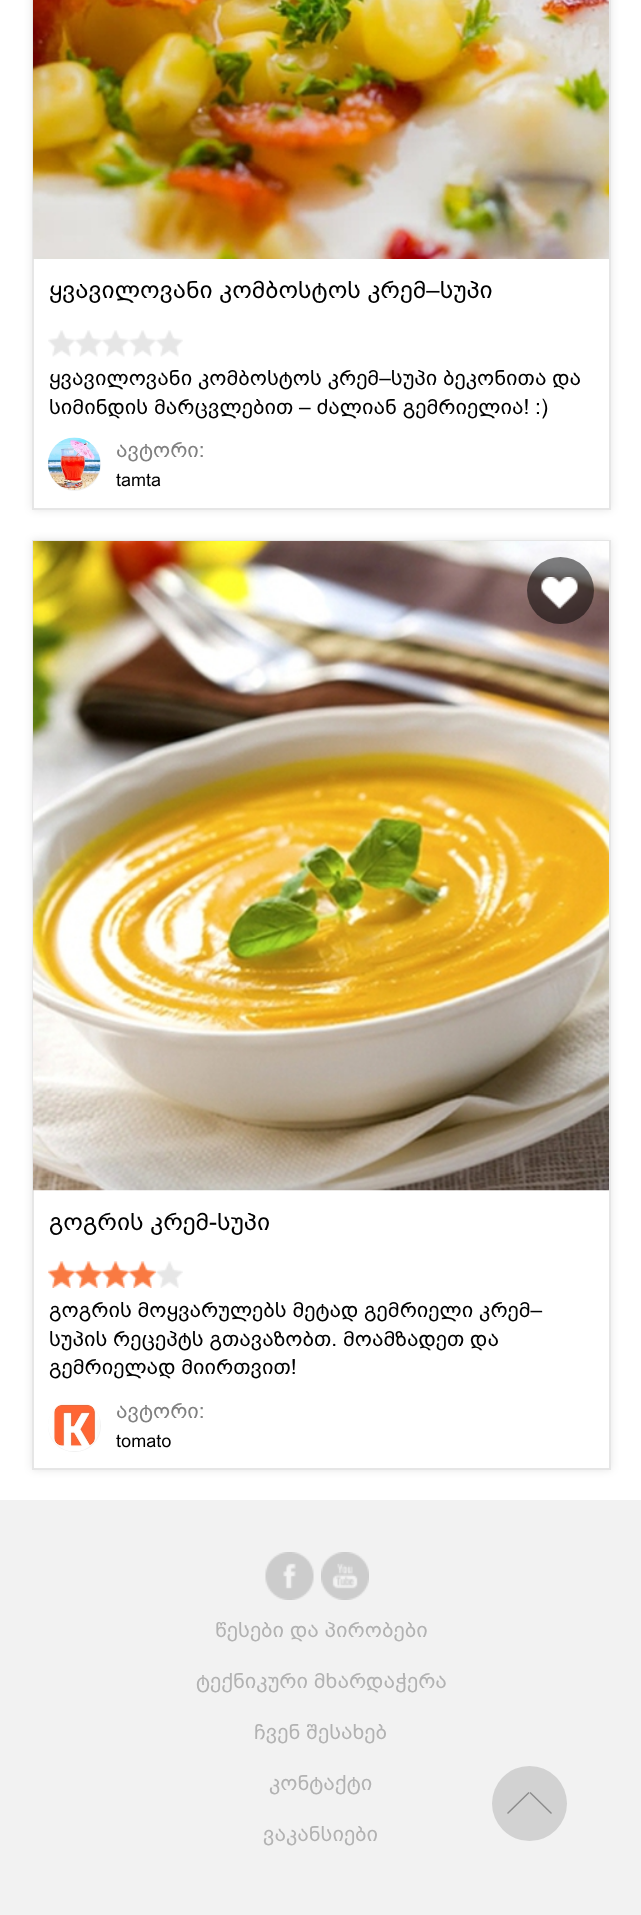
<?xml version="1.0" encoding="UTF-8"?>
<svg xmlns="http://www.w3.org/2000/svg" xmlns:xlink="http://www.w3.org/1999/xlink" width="641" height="1915">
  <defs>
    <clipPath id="clip1"><path d="M 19 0 h 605 v 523 h -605 z m 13 -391 h 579 v 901 h -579 z" clip-rule="evenodd" /></clipPath>
    <clipPath id="clip2"><path d="M 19 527 h 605 v 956 h -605 z m 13 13 h 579 v 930 h -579 z" clip-rule="evenodd" /></clipPath>
  </defs>
  <rect width="100%" height="100%" fill="#ffffff" />
  <g clip-path="url(#clip1)">
    <rect x="32" y="-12" width="579" height="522" fill="#000000" fill-opacity="0.1" filter="blur(4px)" />
  </g>
  <rect x="33" y="-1" width="577" height="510" fill="none" stroke="#e6e6e6" stroke-width="2" />
  <image x="33" y="0" width="576" height="259" xlink:href="image1.png" />
  <image x="48" y="330" width="27" height="27" xlink:href="image2.png" />
  <image x="75" y="330" width="27" height="27" xlink:href="image2.png" />
  <image x="102" y="330" width="27" height="27" xlink:href="image2.png" />
  <image x="129" y="330" width="27" height="27" xlink:href="image2.png" />
  <image x="156" y="330" width="27" height="27" xlink:href="image2.png" />
  <circle cx="74.5" cy="464.5" r="26.5" fill="#f2f2f2" />
  <image x="48" y="437" width="53" height="53" xlink:href="image3.png" />
  <g clip-path="url(#clip2)">
    <rect x="32" y="540" width="579" height="930" fill="#000000" fill-opacity="0.1" filter="blur(4px)" />
  </g>
  <rect x="33" y="541" width="577" height="928" fill="none" stroke="#e6e6e6" stroke-width="2" />
  <image x="33" y="541" width="576" height="650" xlink:href="image4.png" />
  <circle cx="560.5" cy="590.5" r="33.5" fill="#000000" fill-opacity="0.5" />
  <image x="541" y="577" width="37" height="32" xlink:href="image5.png" />
  <image x="48" y="1261" width="27" height="27" xlink:href="image6.png" />
  <image x="75" y="1261" width="27" height="27" xlink:href="image6.png" />
  <image x="102" y="1261" width="27" height="27" xlink:href="image6.png" />
  <image x="129" y="1261" width="27" height="27" xlink:href="image6.png" />
  <image x="156" y="1261" width="27" height="27" xlink:href="image7.png" />
  <rect x="48" y="1400" width="53" height="52" rx="26" fill="#f2f2f2" />
  <image x="48" y="1400" width="52" height="51" xlink:href="image8.png" />
  <rect y="1500" width="641" height="415" fill="#f2f2f2" />
  <image x="265" y="1552" width="49" height="48" xlink:href="image9.png" />
  <image x="321" y="1552" width="48" height="48" xlink:href="image10.png" />
  <circle cx="529.5" cy="1803.5" r="37.5" fill="#d2d2d2" />
  <path d="M 529.5 1793 l 1 -1 l 21.5 21 l -1 1 z" fill="#8b8b8b" />
  <path d="M 528.5 1792 l 1 1 l -21.5 21 l -1 -1 z" fill="#8b8b8b" />
  <text x="49" y="298" style="font-family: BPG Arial; font-size: 24px; fill: #000000">ყვავილოვანი კომბოსტოს კრემ–სუპი</text>
  <text x="49" y="385" style="font-family: BPG Arial; font-size: 21px; fill: #000000">ყვავილოვანი კომბოსტოს კრემ–სუპი ბეკონითა და</text>
  <text x="49" y="414" style="font-family: BPG Arial; font-size: 21px; fill: #000000">სიმინდის მარცვლებით – ძალიან გემრიელია! :)</text>
  <text x="116" y="457" style="font-family: BPG Arial; font-size: 21px; fill: #808080">ავტორი:</text>
  <text x="116" y="486" style="font-family: BPG Arial; font-size: 18px; fill: #000000">tamta</text>
  <text x="49" y="1230" style="font-family: BPG Arial; font-size: 24px; fill: #000000">გოგრის კრემ-სუპი</text>
  <text x="49" y="1317" style="font-family: BPG Arial; font-size: 21px; fill: #000000">გოგრის მოყვარულებს მეტად გემრიელი კრემ–</text>
  <text x="49" y="1346" style="font-family: BPG Arial; font-size: 21px; fill: #000000">სუპის რეცეპტს გთავაზობთ. მოამზადეთ და</text>
  <text x="49" y="1374" style="font-family: BPG Arial; font-size: 21px; fill: #000000">გემრიელად მიირთვით!</text>
  <text x="116" y="1418" style="font-family: BPG Arial; font-size: 21px; fill: #808080">ავტორი:</text>
  <text x="116" y="1447" style="font-family: BPG Arial; font-size: 18px; fill: #000000">tomato</text>
  <text x="215" y="1637" style="font-family: BPG Arial; font-size: 21px; fill: #b2b2b2">წესები და პირობები</text>
  <text x="196" y="1688" style="font-family: BPG Arial; font-size: 21px; fill: #b2b2b2">ტექნიკური მხარდაჭერა</text>
  <text x="254" y="1739" style="font-family: BPG Arial; font-size: 21px; fill: #b2b2b2">ჩვენ შესახებ</text>
  <text x="269" y="1790" style="font-family: BPG Arial; font-size: 21px; fill: #b2b2b2">კონტაქტი</text>
  <text x="263" y="1841" style="font-family: BPG Arial; font-size: 21px; fill: #b2b2b2">ვაკანსიები</text>
</svg>
